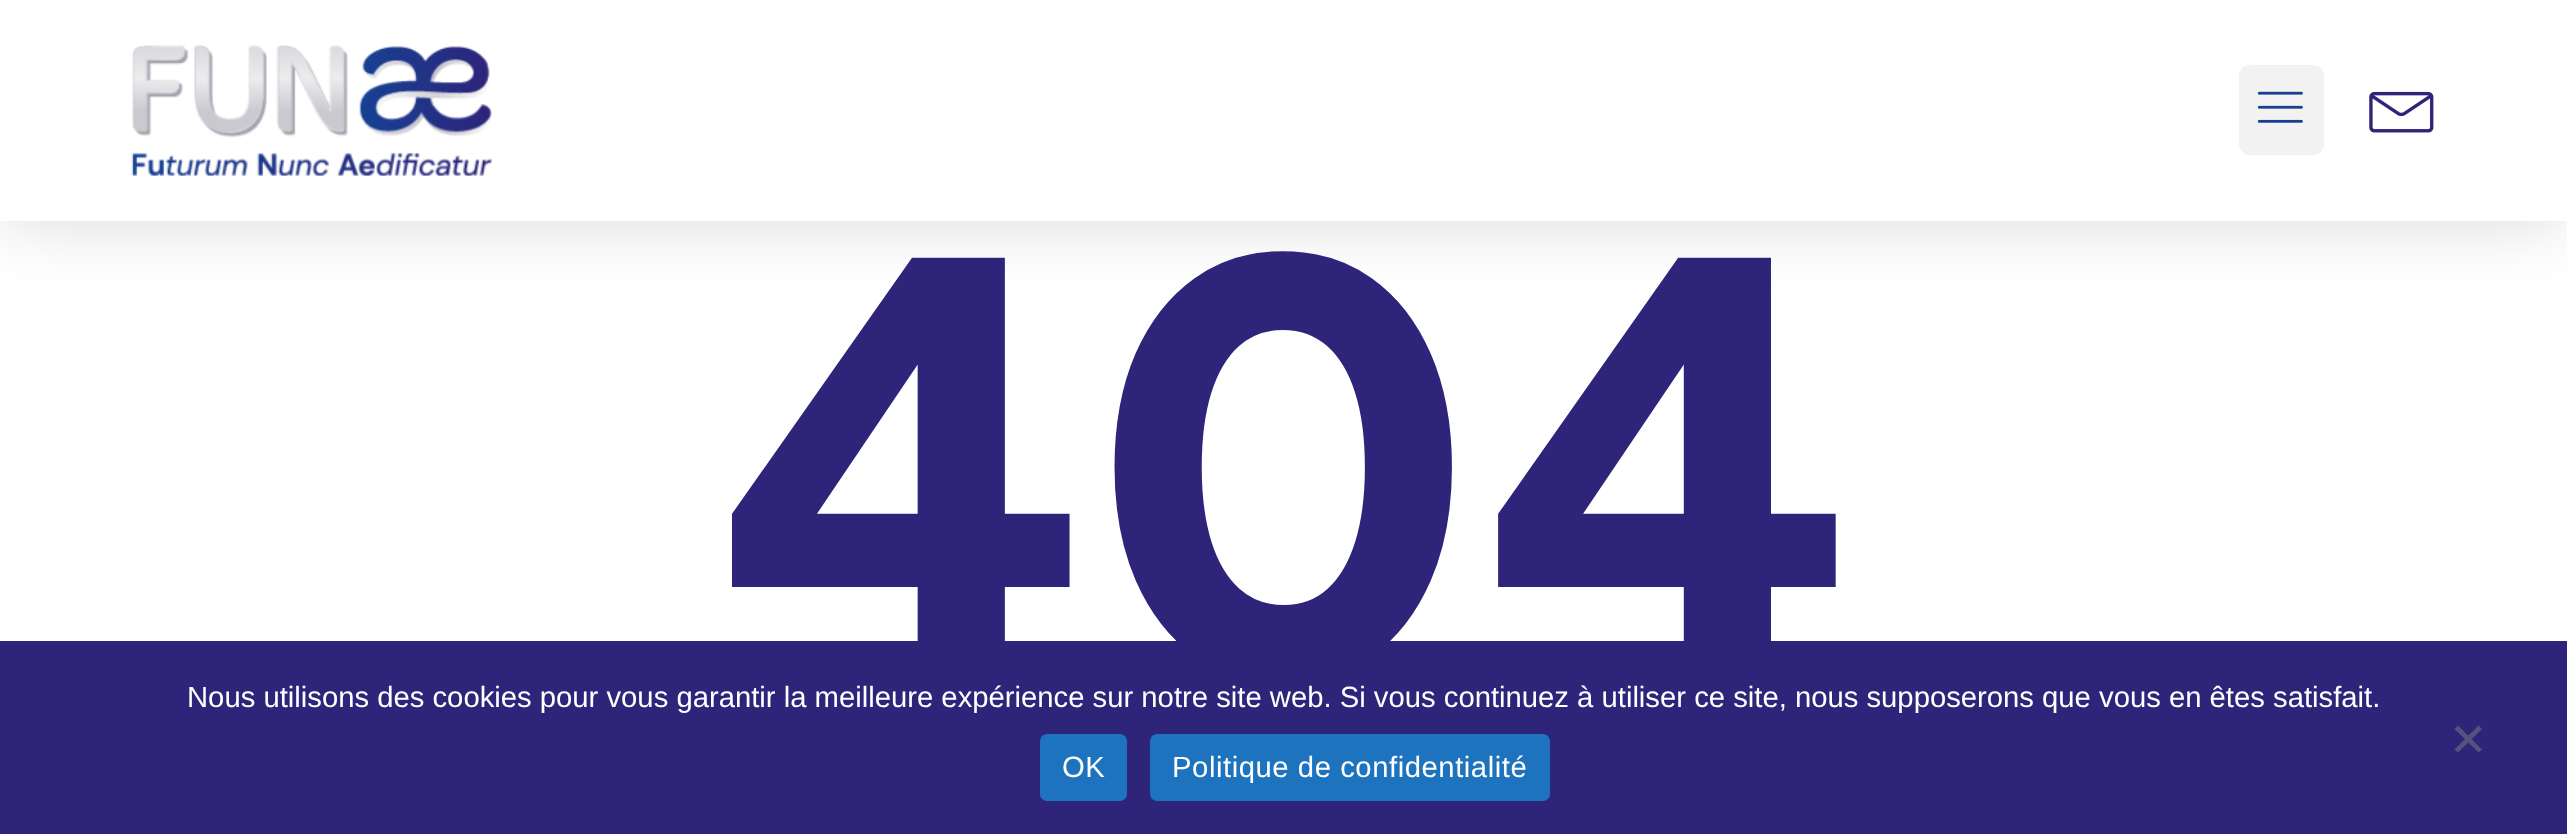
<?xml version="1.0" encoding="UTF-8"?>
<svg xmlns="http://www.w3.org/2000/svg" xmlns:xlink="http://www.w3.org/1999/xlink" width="2567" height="834">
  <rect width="100%" height="100%" fill="#ffffff" />
  <rect width="2567" height="221" fill="#000000" fill-opacity="0.15" filter="blur(34px)" />
  <rect width="2567" height="221" fill="#ffffff" />
  <image x="131" y="45" width="361" height="131" xlink:href="image1.png" />
  <rect x="2239" y="65" width="85" height="90" rx="11" fill="#f2f2f2" />
  <image x="2257" y="91" width="46" height="32" xlink:href="image2.png" />
  <image x="2369" y="91" width="65" height="42" xlink:href="image3.png" />
  <rect y="641" width="2567" height="193" fill="#2e247a" />
  <path d="M 2478.5 725.5 l 3.5 3.5 l -24 23.5 l -3.5 -3 z" fill="#57527d" />
  <path d="M 2454.5 729 l 3.5 -3.5 l 24 24 l -3.5 3 z" fill="#57527d" />
  <rect x="1040" y="734" width="87" height="67" rx="7" fill="#1e73be" />
  <rect x="1150" y="734" width="400" height="67" rx="7" fill="#1e73be" />
  <text x="714" y="677" style="font-family: Plus Jakarta Sans; font-size: 562.5px; font-weight: 800; fill: #2e247a">404</text>
  <text x="187" y="707" style="font-family: Liberation Sans; font-size: 29.25px; fill: #ffffff">Nous utilisons des cookies pour vous garantir la meilleure expérience sur notre site web. Si vous continuez à utiliser ce site, nous supposerons que vous en êtes satisfait.</text>
  <text x="1062" y="777" style="font-family: Liberation Sans; font-size: 29.25px; letter-spacing: 0.55px; fill: #ffffff">OK</text>
  <text x="1172" y="777" style="font-family: Liberation Sans; font-size: 29.25px; letter-spacing: 0.55px; fill: #ffffff">Politique de confidentialité</text>
</svg>
